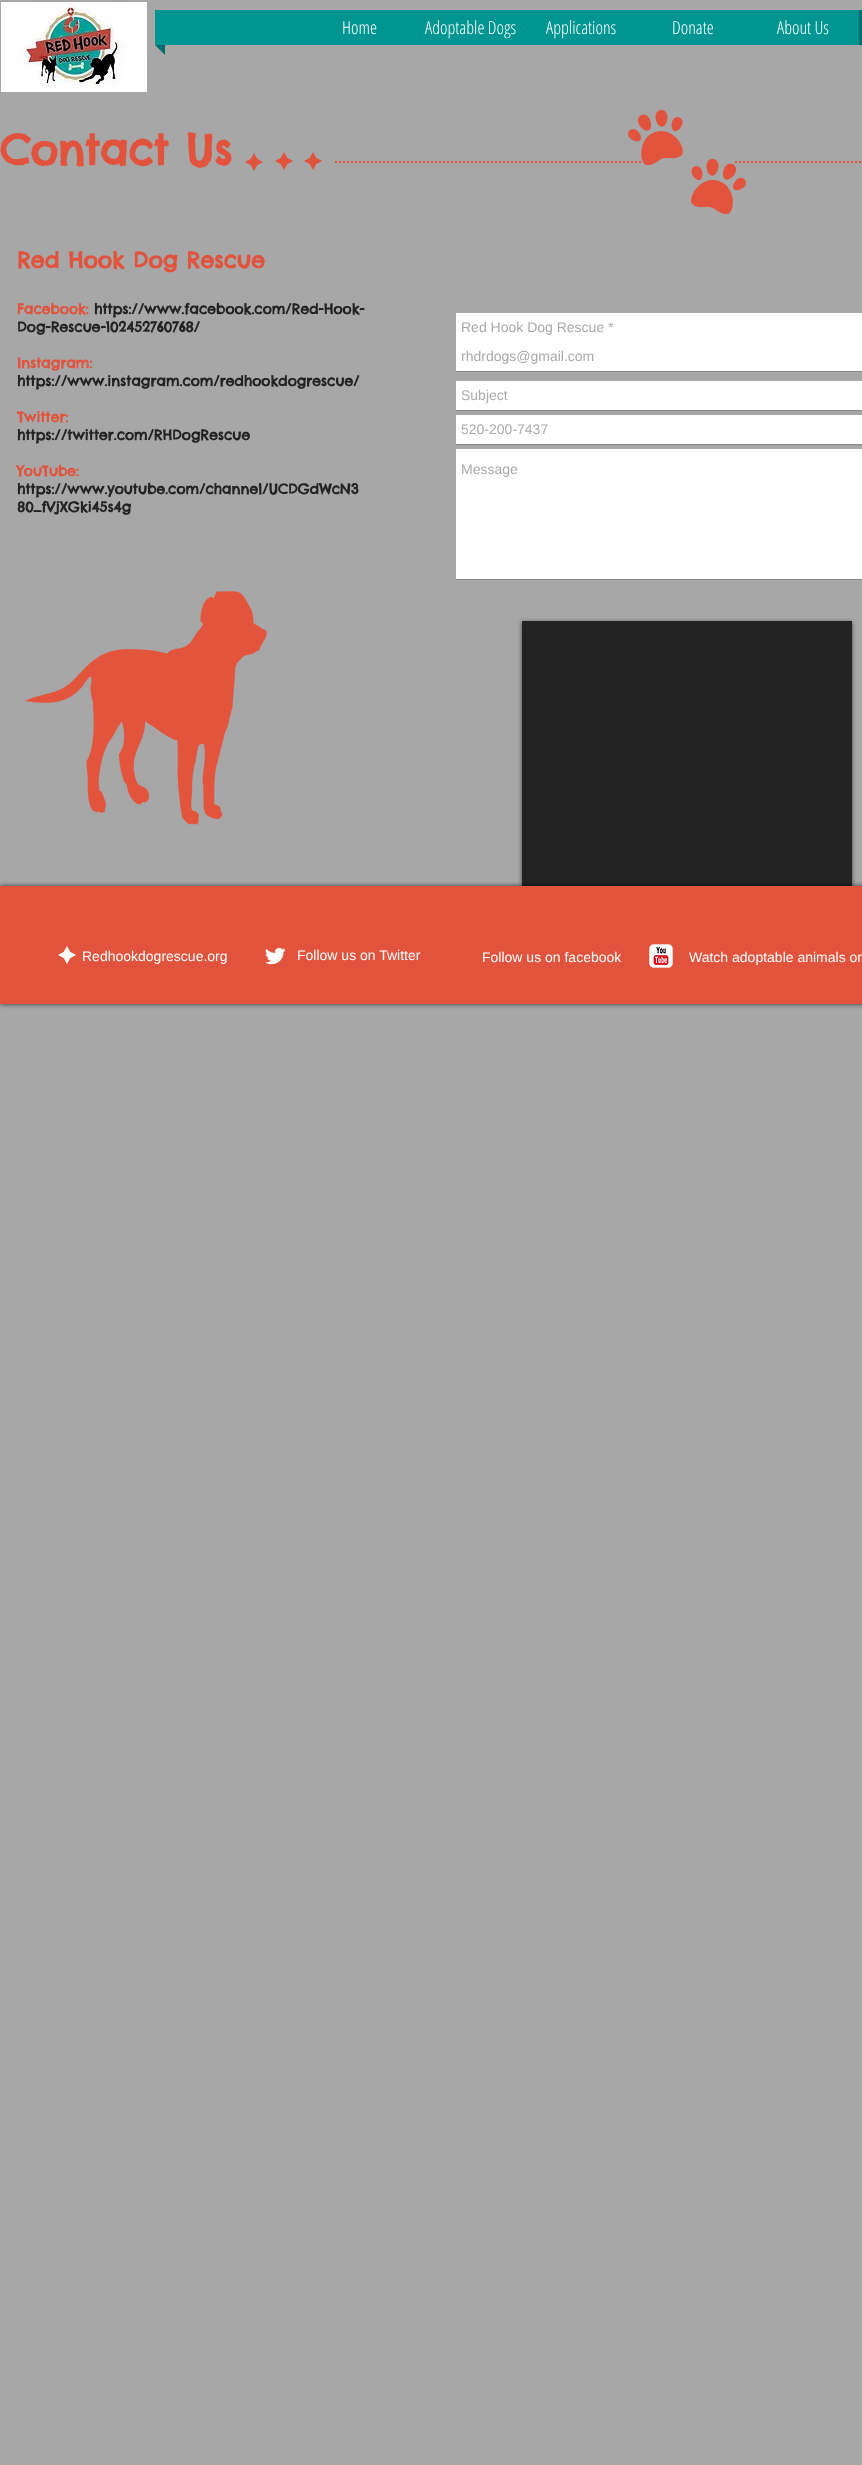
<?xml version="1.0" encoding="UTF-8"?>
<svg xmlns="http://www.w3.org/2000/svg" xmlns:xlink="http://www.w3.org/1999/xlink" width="862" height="2465">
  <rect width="100%" height="100%" fill="#a7a7a7" />
  <image x="1" y="2" width="146" height="90" xlink:href="image1.png" />
  <rect x="155" y="10" width="704" height="35" fill="#009591" />
  <rect x="859" y="10" width="3" height="35" fill="#006c6d" />
  <path d="M 155 45 h 10 v 10 z" fill="#006c6d" />
  <image x="245" y="153" width="18" height="18" xlink:href="image2.png" />
  <image x="275" y="152" width="18" height="18" xlink:href="image2.png" />
  <image x="304" y="152" width="18" height="18" xlink:href="image2.png" />
  <path d="M 335 162 h 310" fill="none" stroke="#e1533c" stroke-width="2" stroke-dasharray="2 2" />
  <path d="M 735 162 h 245" fill="none" stroke="#e1533c" stroke-width="2" stroke-dasharray="2 2" />
  <image x="628" y="110" width="118" height="104" xlink:href="image3.png" />
  <rect x="456" y="314" width="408" height="29" fill="#000000" fill-opacity="0.2" filter="blur(0.5px)" />
  <rect x="456" y="313" width="406" height="29" fill="#ffffff" />
  <rect x="456" y="343" width="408" height="29" fill="#000000" fill-opacity="0.2" filter="blur(0.5px)" />
  <rect x="456" y="342" width="406" height="29" fill="#ffffff" />
  <rect x="456" y="382" width="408" height="29" fill="#000000" fill-opacity="0.2" filter="blur(0.5px)" />
  <rect x="456" y="381" width="406" height="29" fill="#ffffff" />
  <rect x="456" y="416" width="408" height="29" fill="#000000" fill-opacity="0.2" filter="blur(0.5px)" />
  <rect x="456" y="415" width="406" height="29" fill="#ffffff" />
  <rect x="456" y="450" width="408" height="130" fill="#000000" fill-opacity="0.2" filter="blur(0.5px)" />
  <rect x="456" y="449" width="406" height="130" fill="#ffffff" />
  <image x="25" y="591" width="242" height="234" xlink:href="image4.png" />
  <rect x="522" y="622" width="330" height="265" fill="#000000" fill-opacity="0.6" filter="blur(2px)" />
  <rect x="522" y="621" width="330" height="265" fill="#232323" />
  <rect y="886" width="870" height="118" fill="#000000" fill-opacity="0.7" filter="blur(2.5px)" />
  <rect y="886" width="862" height="118" fill="#e1533c" />
  <image x="58" y="946" width="18" height="18" xlink:href="image5.png" />
  <image x="265" y="947" width="21" height="18" xlink:href="image6.png" />
  <image x="649" y="944" width="24" height="24" xlink:href="image7.png" />
  <text x="342" y="34" style="font-family: Open Sans Condensed; font-size: 18px; font-weight: 300; fill: #ffffff">Home</text>
  <text x="425" y="34" style="font-family: Open Sans Condensed; font-size: 18px; font-weight: 300; fill: #ffffff">Adoptable Dogs</text>
  <text x="546" y="34" style="font-family: Open Sans Condensed; font-size: 18px; font-weight: 300; fill: #ffffff">Applications</text>
  <text x="672" y="34" style="font-family: Open Sans Condensed; font-size: 18px; font-weight: 300; fill: #ffffff">Donate</text>
  <text x="777" y="34" style="font-family: Open Sans Condensed; font-size: 18px; font-weight: 300; fill: #ffffff">About Us</text>
  <text x="0" y="165" style="font-family: Chelsea Market; font-size: 42px; font-weight: bold; fill: #e1533c">Contact Us</text>
  <text x="17" y="268" style="font-family: Chelsea Market; font-size: 22px; font-weight: bold; fill: #e1533c">Red Hook Dog Rescue</text>
  <text x="17" y="314" style="font-family: Chelsea Market; font-size: 14px; font-weight: bold; fill: #e1533c">Facebook:</text>
  <text x="94" y="314" style="font-family: Chelsea Market; font-size: 14px; font-weight: bold; fill: #232323">https://www.facebook.com/Red-Hook-</text>
  <text x="17" y="332" style="font-family: Chelsea Market; font-size: 14px; font-weight: bold; fill: #232323">Dog-Rescue-102452760768/</text>
  <text x="17" y="368" style="font-family: Chelsea Market; font-size: 14px; font-weight: bold; fill: #e1533c">Instagram:</text>
  <text x="17" y="386" style="font-family: Chelsea Market; font-size: 14px; font-weight: bold; fill: #232323">https://www.instagram.com/redhookdogrescue/</text>
  <text x="17" y="422" style="font-family: Chelsea Market; font-size: 14px; font-weight: bold; fill: #e1533c">Twitter:</text>
  <text x="17" y="440" style="font-family: Chelsea Market; font-size: 14px; font-weight: bold; fill: #232323">https://twitter.com/RHDogRescue</text>
  <text x="17" y="476" style="font-family: Chelsea Market; font-size: 14px; font-weight: bold; fill: #e1533c">YouTube:</text>
  <text x="17" y="494" style="font-family: Chelsea Market; font-size: 14px; font-weight: bold; fill: #232323">https://www.youtube.com/channel/UCDGdWcN3</text>
  <text x="17" y="512" style="font-family: Chelsea Market; font-size: 14px; font-weight: bold; fill: #232323">80_fVjXGki45s4g</text>
  <text x="461" y="332" style="font-family: Liberation Sans; font-size: 14px; fill: #a9a9a9">Red Hook Dog Rescue *</text>
  <text x="461" y="361" style="font-family: Liberation Sans; font-size: 14px; fill: #a9a9a9">rhdrdogs@gmail.com</text>
  <text x="461" y="400" style="font-family: Liberation Sans; font-size: 14px; fill: #a9a9a9">Subject</text>
  <text x="461" y="434" style="font-family: Liberation Sans; font-size: 14px; fill: #a9a9a9">520-200-7437</text>
  <text x="461" y="474" style="font-family: Liberation Sans; font-size: 14px; fill: #a9a9a9">Message</text>
  <text x="82" y="961" style="font-family: Liberation Sans; font-size: 14px; fill: #ffffff">Redhookdogrescue.org</text>
  <text x="297" y="960" style="font-family: Liberation Sans; font-size: 14px; fill: #ffffff">Follow us on Twitter</text>
  <text x="482" y="962" style="font-family: Liberation Sans; font-size: 14px; fill: #ffffff">Follow us on facebook</text>
  <text x="689" y="962" style="font-family: Liberation Sans; font-size: 14px; fill: #ffffff">Watch adoptable animals on</text>
</svg>
